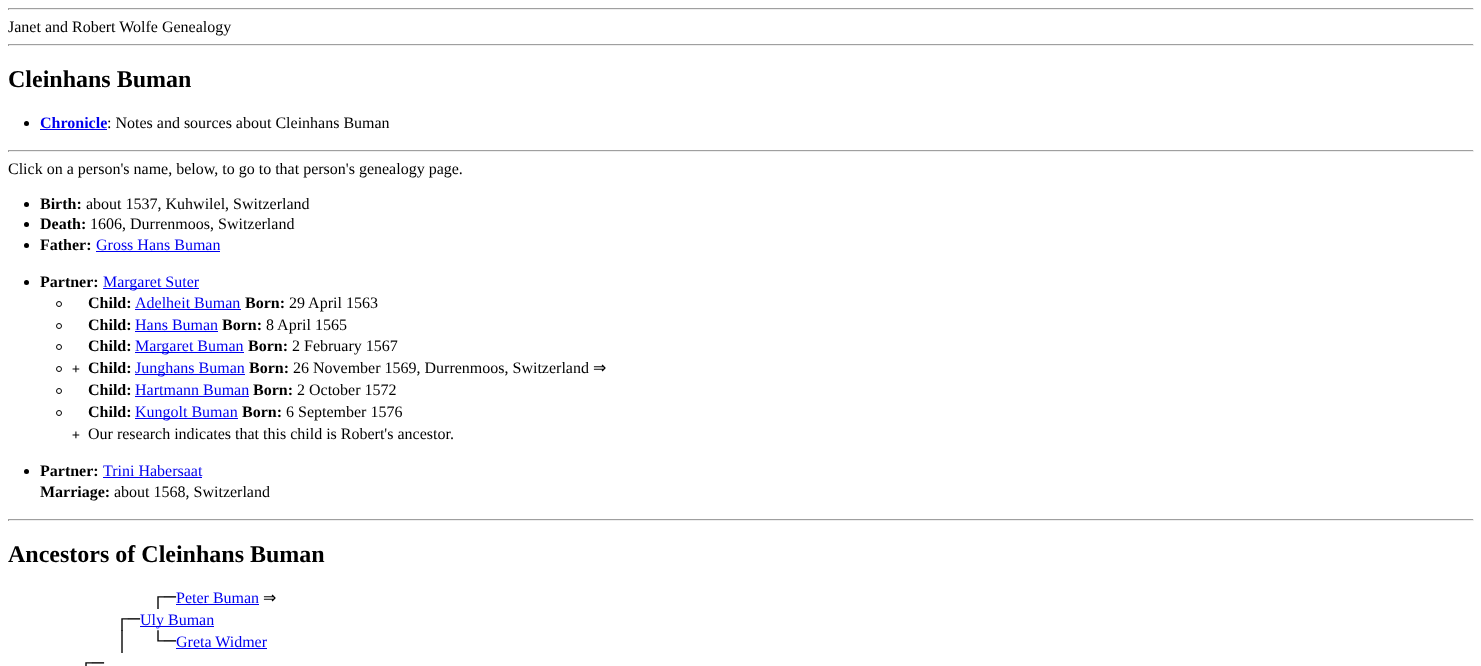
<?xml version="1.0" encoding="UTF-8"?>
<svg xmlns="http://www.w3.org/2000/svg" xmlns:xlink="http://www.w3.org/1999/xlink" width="1481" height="666">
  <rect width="100%" height="100%" fill="#ffffff" />
  <rect x="8" y="8" width="1466" height="1" fill="#9f9f9f" />
  <rect x="1473" y="8" width="1" height="2" fill="#eeeeee" />
  <rect x="8" y="9" width="1466" height="1" fill="#eeeeee" />
  <rect x="8" y="8" width="1" height="2" fill="#9f9f9f" />
  <rect x="8" y="44" width="1466" height="1" fill="#9f9f9f" />
  <rect x="1473" y="44" width="1" height="2" fill="#eeeeee" />
  <rect x="8" y="45" width="1466" height="1" fill="#eeeeee" />
  <rect x="8" y="44" width="1" height="2" fill="#9f9f9f" />
  <circle cx="26.5" cy="123.5" r="2.5" fill="#000000" />
  <rect x="40" y="129" width="67" height="1" fill="#0000ee" />
  <rect x="8" y="150" width="1466" height="1" fill="#9f9f9f" />
  <rect x="1473" y="150" width="1" height="2" fill="#eeeeee" />
  <rect x="8" y="151" width="1466" height="1" fill="#eeeeee" />
  <rect x="8" y="150" width="1" height="2" fill="#9f9f9f" />
  <circle cx="26.5" cy="204.5" r="2.5" fill="#000000" />
  <circle cx="26.5" cy="224.5" r="2.5" fill="#000000" />
  <circle cx="26.5" cy="245.5" r="2.5" fill="#000000" />
  <rect x="96" y="251" width="124" height="1" fill="#0000ee" />
  <circle cx="26.5" cy="282.5" r="2.5" fill="#000000" />
  <rect x="103" y="288" width="96" height="1" fill="#0000ee" />
  <circle cx="59" cy="304" r="2.5" fill="none" stroke="#000000" />
  <rect x="135" y="309" width="106" height="1" fill="#0000ee" />
  <circle cx="59" cy="326" r="2.5" fill="none" stroke="#000000" />
  <rect x="135" y="331" width="83" height="1" fill="#0000ee" />
  <circle cx="59" cy="347" r="2.5" fill="none" stroke="#000000" />
  <rect x="135" y="352" width="109" height="1" fill="#0000ee" />
  <circle cx="59" cy="369" r="2.5" fill="none" stroke="#000000" />
  <rect x="135" y="374" width="110" height="1" fill="#0000ee" />
  <circle cx="59" cy="391" r="2.5" fill="none" stroke="#000000" />
  <rect x="135" y="396" width="114" height="1" fill="#0000ee" />
  <circle cx="59" cy="413" r="2.5" fill="none" stroke="#000000" />
  <rect x="135" y="418" width="103" height="1" fill="#0000ee" />
  <circle cx="26.5" cy="471.5" r="2.5" fill="#000000" />
  <rect x="103" y="477" width="99" height="1" fill="#0000ee" />
  <rect x="8" y="519" width="1466" height="1" fill="#9f9f9f" />
  <rect x="1473" y="519" width="1" height="2" fill="#eeeeee" />
  <rect x="8" y="520" width="1466" height="1" fill="#eeeeee" />
  <rect x="8" y="519" width="1" height="2" fill="#9f9f9f" />
  <text x="8" y="32" style="font-family: Liberation Serif; font-size: 16px; fill: #000000">Janet and Robert Wolfe Genealogy</text>
  <text x="8" y="87" style="font-family: Liberation Serif; font-size: 24px; font-weight: bold; fill: #000000">Cleinhans Buman</text>
  <text x="40" y="128" style="font-family: Liberation Serif; font-size: 16px; font-weight: bold; fill: #0000ee">Chronicle</text>
  <text x="107" y="128" style="font-family: Liberation Serif; font-size: 16px; fill: #000000">: Notes and sources about Cleinhans Buman</text>
  <text x="8" y="174" style="font-family: Liberation Serif; font-size: 16px; fill: #000000">Click on a person's name, below, to go to that person's genealogy page.</text>
  <text x="40" y="209" style="font-family: Liberation Serif; font-size: 16px; font-weight: bold; fill: #000000">Birth:</text>
  <text x="86" y="209" style="font-family: Liberation Serif; font-size: 16px; fill: #000000">about 1537, Kuhwilel, Switzerland</text>
  <text x="40" y="229" style="font-family: Liberation Serif; font-size: 16px; font-weight: bold; fill: #000000">Death:</text>
  <text x="90" y="229" style="font-family: Liberation Serif; font-size: 16px; fill: #000000">1606, Durrenmoos, Switzerland</text>
  <text x="40" y="250" style="font-family: Liberation Serif; font-size: 16px; font-weight: bold; fill: #000000">Father:</text>
  <text x="96" y="250" style="font-family: Liberation Serif; font-size: 16px; fill: #0000ee">Gross Hans Buman</text>
  <text x="40" y="287" style="font-family: Liberation Serif; font-size: 16px; font-weight: bold; fill: #000000">Partner:</text>
  <text x="103" y="287" style="font-family: Liberation Serif; font-size: 16px; fill: #0000ee">Margaret Suter</text>
  <text x="88" y="308" style="font-family: Liberation Serif; font-size: 16px; font-weight: bold; fill: #000000">Child:</text>
  <text x="135" y="308" style="font-family: Liberation Serif; font-size: 16px; fill: #0000ee">Adelheit Buman</text>
  <text x="245" y="308" style="font-family: Liberation Serif; font-size: 16px; font-weight: bold; fill: #000000">Born:</text>
  <text x="289" y="308" style="font-family: Liberation Serif; font-size: 16px; fill: #000000">29 April 1563</text>
  <text x="88" y="330" style="font-family: Liberation Serif; font-size: 16px; font-weight: bold; fill: #000000">Child:</text>
  <text x="135" y="330" style="font-family: Liberation Serif; font-size: 16px; fill: #0000ee">Hans Buman</text>
  <text x="222" y="330" style="font-family: Liberation Serif; font-size: 16px; font-weight: bold; fill: #000000">Born:</text>
  <text x="266" y="330" style="font-family: Liberation Serif; font-size: 16px; fill: #000000">8 April 1565</text>
  <text x="88" y="351" style="font-family: Liberation Serif; font-size: 16px; font-weight: bold; fill: #000000">Child:</text>
  <text x="135" y="351" style="font-family: Liberation Serif; font-size: 16px; fill: #0000ee">Margaret Buman</text>
  <text x="248" y="351" style="font-family: Liberation Serif; font-size: 16px; font-weight: bold; fill: #000000">Born:</text>
  <text x="292" y="351" style="font-family: Liberation Serif; font-size: 16px; fill: #000000">2 February 1567</text>
  <text x="72" y="373" style="font-family: DejaVu Sans Mono; font-size: 13px; fill: #000000">+</text>
  <text x="88" y="373" style="font-family: Liberation Serif; font-size: 16px; font-weight: bold; fill: #000000">Child:</text>
  <text x="135" y="373" style="font-family: Liberation Serif; font-size: 16px; fill: #0000ee">Junghans Buman</text>
  <text x="249" y="373" style="font-family: Liberation Serif; font-size: 16px; font-weight: bold; fill: #000000">Born:</text>
  <text x="293" y="373" style="font-family: Liberation Serif; font-size: 16px; fill: #000000">26 November 1569, Durrenmoos, Switzerland</text>
  <text x="593" y="373" style="font-family: DejaVu Sans; font-size: 16px; fill: #000000">⇒</text>
  <text x="88" y="395" style="font-family: Liberation Serif; font-size: 16px; font-weight: bold; fill: #000000">Child:</text>
  <text x="135" y="395" style="font-family: Liberation Serif; font-size: 16px; fill: #0000ee">Hartmann Buman</text>
  <text x="253" y="395" style="font-family: Liberation Serif; font-size: 16px; font-weight: bold; fill: #000000">Born:</text>
  <text x="297" y="395" style="font-family: Liberation Serif; font-size: 16px; fill: #000000">2 October 1572</text>
  <text x="88" y="417" style="font-family: Liberation Serif; font-size: 16px; font-weight: bold; fill: #000000">Child:</text>
  <text x="135" y="417" style="font-family: Liberation Serif; font-size: 16px; fill: #0000ee">Kungolt Buman</text>
  <text x="242" y="417" style="font-family: Liberation Serif; font-size: 16px; font-weight: bold; fill: #000000">Born:</text>
  <text x="286" y="417" style="font-family: Liberation Serif; font-size: 16px; fill: #000000">6 September 1576</text>
  <text x="72" y="439" style="font-family: DejaVu Sans Mono; font-size: 13px; fill: #000000">+</text>
  <text x="88" y="439" style="font-family: Liberation Serif; font-size: 16px; fill: #000000">Our research indicates that this child is Robert's ancestor.</text>
  <text x="40" y="476" style="font-family: Liberation Serif; font-size: 16px; font-weight: bold; fill: #000000">Partner:</text>
  <text x="103" y="476" style="font-family: Liberation Serif; font-size: 16px; fill: #0000ee">Trini Habersaat</text>
  <text x="40" y="497" style="font-family: Liberation Serif; font-size: 16px; font-weight: bold; fill: #000000">Marriage:</text>
  <text x="114" y="497" style="font-family: Liberation Serif; font-size: 16px; fill: #000000">about 1568, Switzerland</text>
  <text x="8" y="562" style="font-family: Liberation Serif; font-size: 24px; font-weight: bold; fill: #000000">Ancestors of Cleinhans Buman</text>
  <text x="152" y="603" style="font-family: Liberation Mono; font-size: 20px; fill: #000000">┌─</text>
  <text x="176" y="603" style="font-family: Liberation Serif; font-size: 16px; fill: #0000ee">Peter Buman</text>
  <rect x="176" y="604" width="83" height="1" fill="#0000ee" />
  <text x="263" y="603" style="font-family: DejaVu Sans; font-size: 16px; fill: #000000">⇒</text>
  <text x="116" y="625" style="font-family: Liberation Mono; font-size: 20px; fill: #000000">┌─</text>
  <rect x="140" y="626" width="74" height="1" fill="#0000ee" />
  <text x="140" y="625" style="font-family: Liberation Serif; font-size: 16px; fill: #0000ee">Uly Buman</text>
  <text x="116" y="647" style="font-family: Liberation Mono; font-size: 20px; fill: #000000" xml:space="preserve">│  └─</text>
  <text x="176" y="647" style="font-family: Liberation Serif; font-size: 16px; fill: #0000ee">Greta Widmer</text>
  <rect x="176" y="648" width="91" height="1" fill="#0000ee" />
  <text x="80" y="669" style="font-family: Liberation Mono; font-size: 20px; fill: #000000">┌─</text>
</svg>
